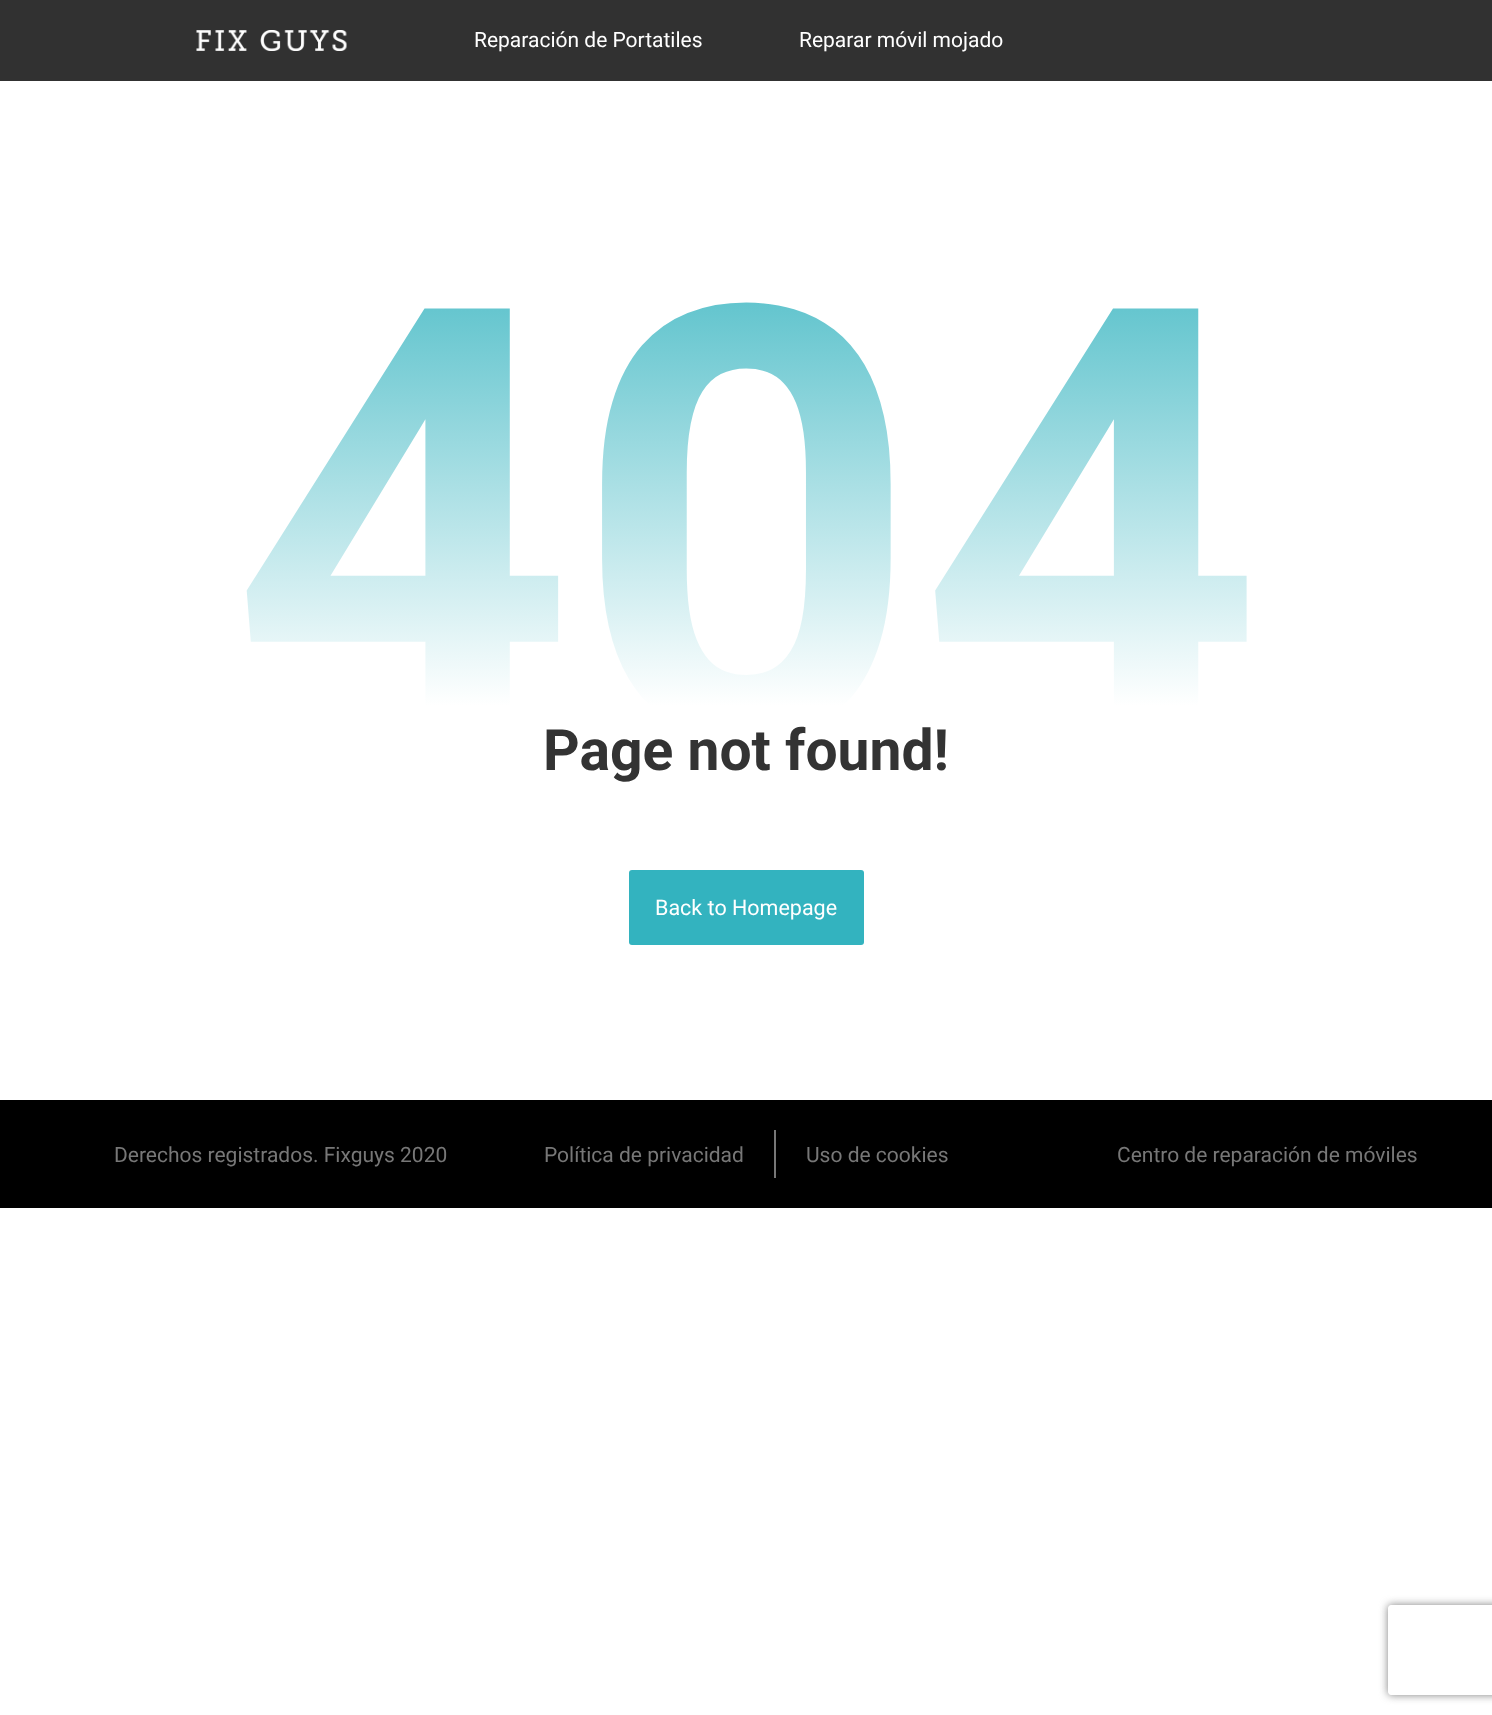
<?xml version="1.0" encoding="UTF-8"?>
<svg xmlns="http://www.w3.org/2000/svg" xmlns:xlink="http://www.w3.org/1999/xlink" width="1492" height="1715">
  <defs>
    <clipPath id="clip1"><path d="M 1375 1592 h 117 v 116 h -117 z m 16 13 h 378 c 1.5 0 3 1.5 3 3 v 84 c 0 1.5 -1.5 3 -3 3 h -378 c -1.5 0 -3 -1.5 -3 -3 v -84 c 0 -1.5 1.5 -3 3 -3 z" clip-rule="evenodd" /></clipPath>
    <linearGradient id="g1" gradientUnits="userSpaceOnUse" x1="746" y1="178" x2="746" y2="882"><stop offset="0" stop-color="#33b3bf" /><stop offset="0.75" stop-color="#ffffff" /></linearGradient>
  </defs>
  <rect width="100%" height="100%" fill="#ffffff" />
  <rect width="1492" height="81" fill="#313131" />
  <image x="196" y="30" width="151" height="21" xlink:href="image1.png" />
  <rect x="629" y="870" width="235" height="75" rx="3" fill="#33b3bf" />
  <rect y="1100" width="1492" height="108" fill="#000000" />
  <rect x="774" y="1130" width="2" height="48" fill="#777777" />
  <g clip-path="url(#clip1)">
    <rect x="1388" y="1605" width="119" height="90" rx="3" fill="#808080" filter="blur(4px)" />
  </g>
  <text x="474" y="47" style="font-family: Roboto; font-size: 21px; fill: #ffffff">Reparación de Portatiles</text>
  <text x="799" y="47" style="font-family: Roboto; font-size: 21px; fill: #ffffff">Reparar móvil mojado</text>
  <text x="230" y="735" style="font-family: Roboto; font-size: 600px; font-weight: bold; fill: url(#g1)">404</text>
  <text x="543" y="770" style="font-family: Roboto; font-size: 57px; font-weight: bold; fill: #333333">Page not found!</text>
  <text x="655" y="915" style="font-family: Roboto; font-size: 21.5px; fill: #ffffff">Back to Homepage</text>
  <text x="114" y="1162" style="font-family: Roboto; font-size: 21px; fill: #777777">Derechos registrados. Fixguys 2020</text>
  <text x="544" y="1162" style="font-family: Roboto; font-size: 21px; fill: #777777">Política de privacidad</text>
  <text x="806" y="1162" style="font-family: Roboto; font-size: 21px; fill: #777777">Uso de cookies</text>
  <text x="1117" y="1162" style="font-family: Roboto; font-size: 21px; fill: #777777">Centro de reparación de móviles</text>
</svg>
